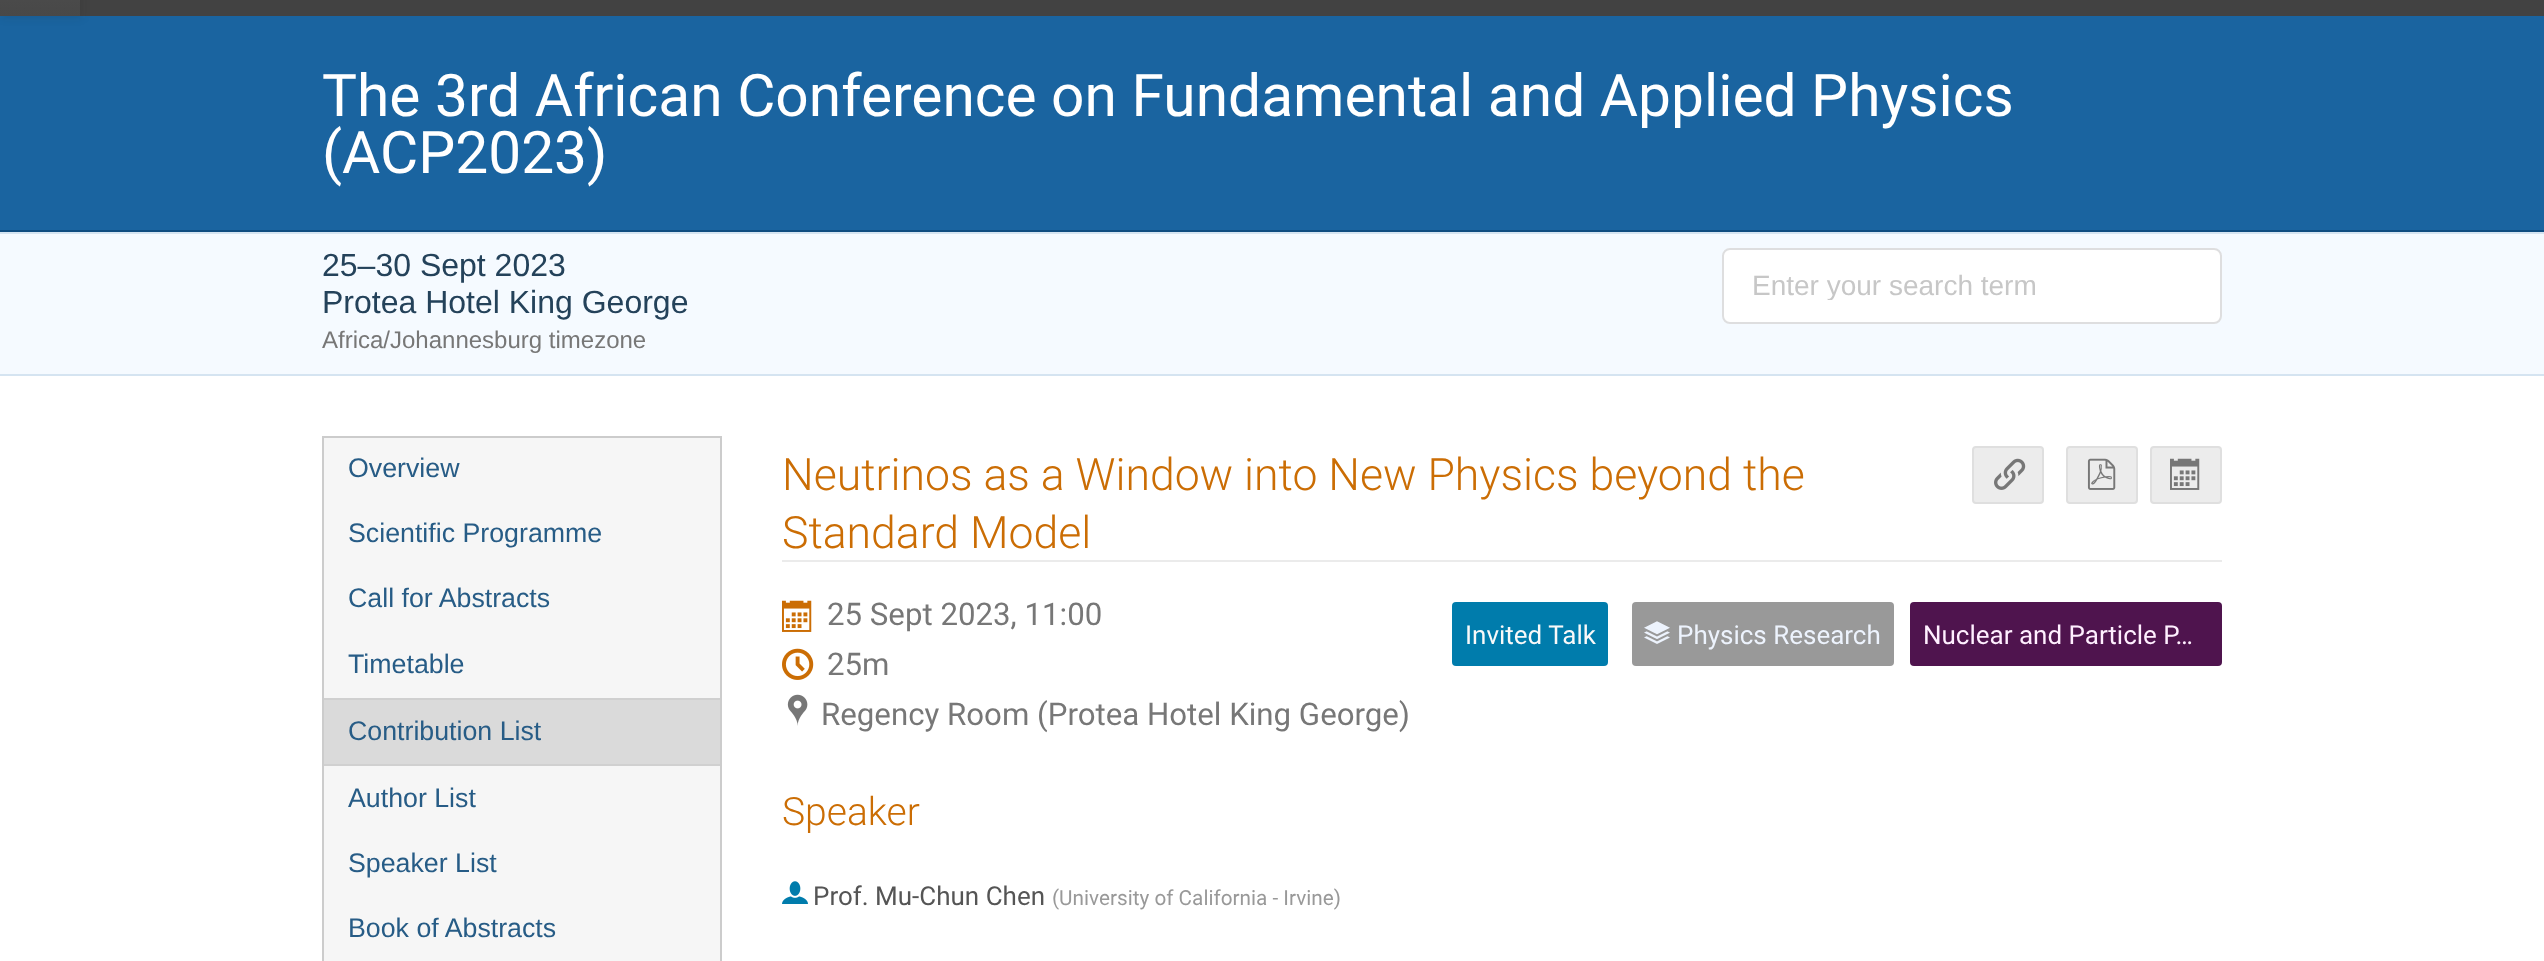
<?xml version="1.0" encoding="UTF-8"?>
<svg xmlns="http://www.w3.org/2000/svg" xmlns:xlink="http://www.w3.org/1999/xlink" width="2544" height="961">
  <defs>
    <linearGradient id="g1" gradientUnits="userSpaceOnUse" x1="40" y1="-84" x2="40" y2="16"><stop offset="0" stop-color="#555555" /><stop offset="1" stop-color="#484848" /></linearGradient>
    <clipPath id="clip1"><rect x="1752" y="268" width="394" height="32" /></clipPath>
  </defs>
  <rect width="100%" height="100%" fill="#ffffff" />
  <rect x="80" width="2464" height="16" fill="#424242" />
  <rect y="16" width="2544" height="214" fill="#1a64a0" />
  <rect x="2" y="-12" width="80" height="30" fill="#141414" fill-opacity="0.1" filter="blur(4px)" />
  <rect width="80" height="16" fill="url(#g1)" />
  <rect y="230" width="2544" height="2" fill="#0f4c80" />
  <rect y="234" width="2544" height="140" fill="#f5faff" />
  <rect y="232" width="2544" height="2" fill="#d5e4f1" />
  <rect y="374" width="2544" height="2" fill="#d5e4f1" />
  <rect x="1722" y="248" width="500" height="76" rx="8" fill="#ffffff" />
  <rect x="1723" y="249" width="498" height="74" rx="7" fill="none" stroke="#222426" stroke-opacity="0.15" stroke-width="2" />
  <rect x="323" y="437" width="398" height="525" fill="#f6f6f6" stroke="#cccccc" stroke-width="2" />
  <rect x="324" y="700" width="396" height="64" fill="#dadada" />
  <rect x="324" y="698" width="396" height="2" fill="#d0d0d0" />
  <rect x="324" y="764" width="396" height="2" fill="#d0d0d0" />
  <rect x="782" y="560" width="1440" height="2" fill="#ebebeb" />
  <rect x="1973" y="447" width="70" height="56" rx="3" fill="#ececec" stroke="#dfdfdf" stroke-width="2" />
  <image x="1994" y="458" width="32" height="32" xlink:href="image1.png" />
  <rect x="2067" y="447" width="70" height="56" rx="3" fill="#ececec" stroke="#dfdfdf" stroke-width="2" />
  <image x="2087" y="458" width="29" height="32" xlink:href="image2.png" />
  <rect x="2151" y="447" width="70" height="56" rx="3" fill="#ececec" stroke="#dfdfdf" stroke-width="2" />
  <image x="2170" y="458" width="30" height="32" xlink:href="image3.png" />
  <image x="782" y="600" width="30" height="32" xlink:href="image4.png" />
  <image x="782" y="648" width="32" height="32" xlink:href="image5.png" />
  <image x="787" y="694" width="21" height="32" xlink:href="image6.png" />
  <rect x="1452" y="602" width="156" height="64" rx="4" fill="#007cac" />
  <rect x="1632" y="602" width="262" height="64" rx="4" fill="#999999" />
  <image x="1644" y="621" width="26" height="23" xlink:href="image7.png" />
  <rect x="1910" y="602" width="312" height="64" rx="4" fill="#4f144e" />
  <image x="782" y="881" width="26" height="23" xlink:href="image8.png" />
  <text x="322" y="116" style="font-family: Roboto; font-size: 58.7px; fill: #ffffff">The 3rd African Conference on Fundamental and Applied Physics</text>
  <text x="322" y="173" style="font-family: Roboto; font-size: 58.7px; fill: #ffffff">(ACP2023)</text>
  <text x="322" y="276" style="font-family: Liberation Sans; font-size: 32px; fill: #24425a">25–30 Sept 2023</text>
  <text x="322" y="313" style="font-family: Liberation Sans; font-size: 32px; fill: #24425a">Protea Hotel King George</text>
  <text x="322" y="348" style="font-family: Liberation Sans; font-size: 24px; fill: #777777">Africa/Johannesburg timezone</text>
  <g clip-path="url(#clip1)">
    <text x="1752" y="295" style="font-family: 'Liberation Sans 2'; font-size: 28px; fill: #c7c7c7">Enter your search term</text>
  </g>
  <text x="348" y="477" style="font-family: 'Liberation Sans 2'; font-size: 26.75px; fill: #275c86">Overview</text>
  <text x="348" y="542" style="font-family: 'Liberation Sans 2'; font-size: 26.75px; fill: #275c86">Scientific Programme</text>
  <text x="348" y="607" style="font-family: 'Liberation Sans 2'; font-size: 26.75px; fill: #275c86">Call for Abstracts</text>
  <text x="348" y="673" style="font-family: 'Liberation Sans 2'; font-size: 26.75px; fill: #275c86">Timetable</text>
  <text x="348" y="740" style="font-family: 'Liberation Sans 2'; font-size: 26.75px; fill: #275c86">Contribution List</text>
  <text x="348" y="807" style="font-family: 'Liberation Sans 2'; font-size: 26.75px; fill: #275c86">Author List</text>
  <text x="348" y="872" style="font-family: 'Liberation Sans 2'; font-size: 26.75px; fill: #275c86">Speaker List</text>
  <text x="348" y="937" style="font-family: 'Liberation Sans 2'; font-size: 26.75px; fill: #275c86">Book of Abstracts</text>
  <text x="782" y="490" style="font-family: Roboto; font-size: 44.55px; font-weight: 300; fill: #cb6d04">Neutrinos as a Window into New Physics beyond the</text>
  <text x="782" y="548" style="font-family: Roboto; font-size: 44.55px; font-weight: 300; fill: #cb6d04">Standard Model</text>
  <text x="827" y="625" style="font-family: Roboto; font-size: 31.25px; fill: #777777">25 Sept 2023, 11:00</text>
  <text x="827" y="675" style="font-family: Roboto; font-size: 31.25px; fill: #777777">25m</text>
  <text x="821" y="725" style="font-family: Roboto; font-size: 31.25px; fill: #777777">Regency Room (Protea Hotel King George)</text>
  <text x="1465" y="644" style="font-family: Roboto; font-size: 26px; fill: #f9f9f9">Invited Talk</text>
  <text x="1677" y="644" style="font-family: Roboto; font-size: 26px; fill: #edf3fd">Physics Research</text>
  <text x="1923" y="644" style="font-family: Roboto; font-size: 26px; fill: #ffefff">Nuclear and Particle P…</text>
  <text x="782" y="825" style="font-family: Roboto; font-size: 39px; font-weight: 300; fill: #cb6d04">Speaker</text>
  <text x="813" y="905" style="font-family: Roboto; font-size: 26px; fill: #555555">Prof. Mu-Chun Chen</text>
  <text x="1052" y="905" style="font-family: Roboto; font-size: 20.75px; fill: #999999">(University of California - Irvine)</text>
</svg>
